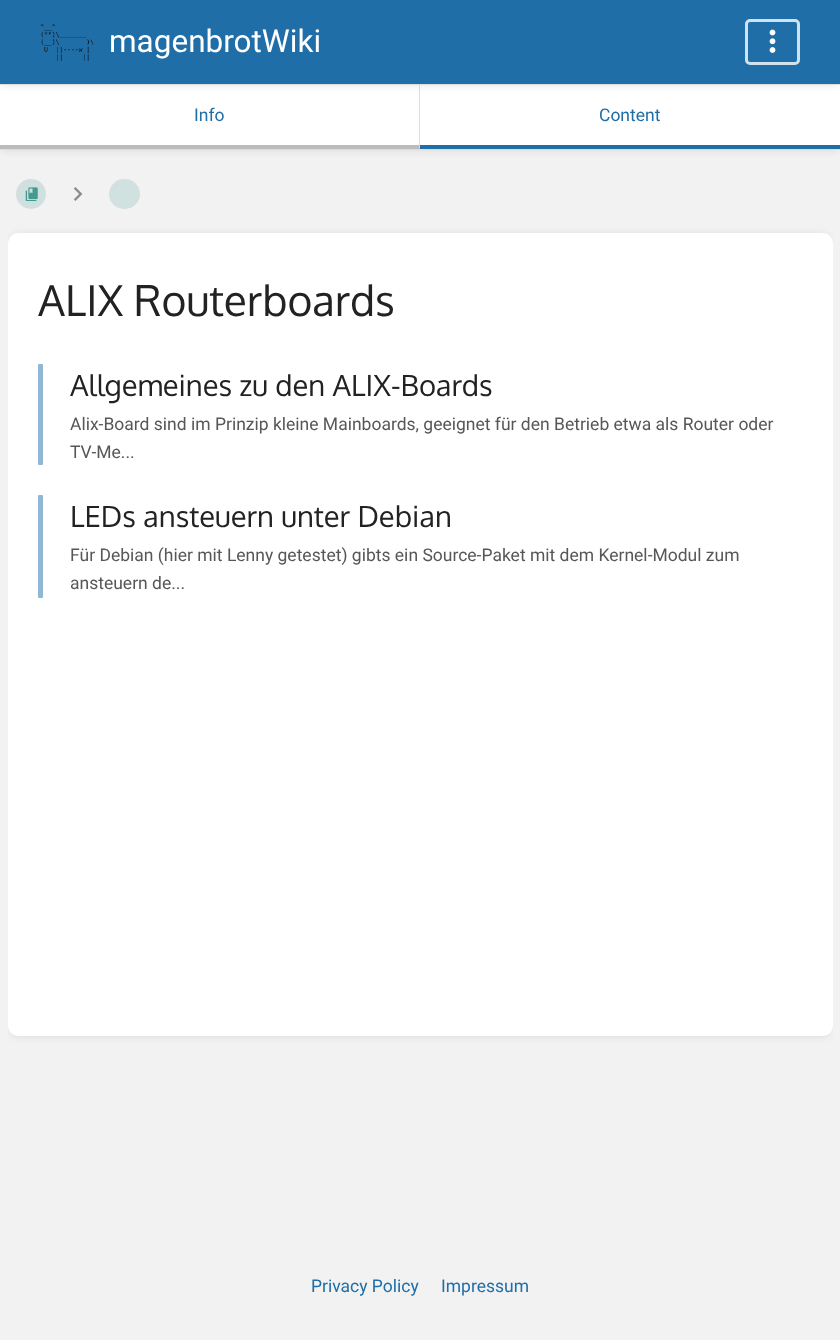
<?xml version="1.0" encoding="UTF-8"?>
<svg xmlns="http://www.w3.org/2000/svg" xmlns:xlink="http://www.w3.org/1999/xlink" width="840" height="1340">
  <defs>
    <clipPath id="clip1"><rect x="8" y="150" width="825" height="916" /></clipPath>
  </defs>
  <rect width="100%" height="100%" fill="#f2f2f2" />
  <rect x="1" y="88" width="838" height="62" fill="#000000" fill-opacity="0.1" filter="blur(4px)" />
  <rect y="85" width="840" height="64" fill="#ffffff" />
  <path d="M 420 85 v 64 l -1 -4 v -60 z" fill="#dddddd" />
  <rect x="1" y="3" width="838" height="82" fill="#000000" fill-opacity="0.1" filter="blur(4px)" />
  <rect width="840" height="84" fill="#206ea7" />
  <rect y="84" width="840" height="1" fill="#dddddd" />
  <image x="40" y="24" width="54" height="37" xlink:href="image1.png" />
  <rect x="746.5" y="20.5" width="52" height="43" rx="3.5" fill="none" stroke="#d2e2ed" stroke-width="3" />
  <image x="769" y="29" width="7" height="24" xlink:href="image2.png" />
  <rect y="149" width="840" height="1" fill="#dddddd" />
  <path d="M 420 149 h -420 v -4 h 419 z" fill="#bbbbbb" />
  <rect x="420" y="145" width="420" height="4" fill="#206ea7" />
  <image x="25" y="187" width="13" height="14" xlink:href="image3.png" />
  <circle cx="31" cy="194" r="15" fill="#077b70" fill-opacity="0.14" />
  <image x="73" y="187" width="10" height="14" xlink:href="image4.png" />
  <rect x="109" y="179" width="31" height="30" rx="15" fill="#d1e1e0" />
  <g clip-path="url(#clip1)">
    <rect x="9" y="235" width="822" height="801" rx="9" fill="#000000" fill-opacity="0.1" filter="blur(4px)" />
  </g>
  <rect x="8" y="233" width="825" height="803" rx="10" fill="#ffffff" />
  <rect x="38" y="364" width="5" height="101" rx="1" fill="#90b7d3" />
  <rect x="38" y="495" width="5" height="103" rx="1" fill="#90b7d3" />
  <text x="109" y="52" style="font-family: Roboto; font-size: 31.5px; fill: #ffffff">magenbrotWiki</text>
  <text x="194" y="121" style="font-family: Roboto; font-size: 17.5px; fill: #206ea7">Info</text>
  <text x="599" y="121" style="font-family: Roboto; font-size: 17.5px; fill: #206ea7">Content</text>
  <text x="38" y="316" style="font-family: Oxygen; font-size: 42.5px; fill: #222222">ALIX Routerboards</text>
  <text x="70" y="396" style="font-family: Oxygen; font-size: 29.2px; fill: #222222">Allgemeines zu den ALIX-Boards</text>
  <text x="70" y="430" style="font-family: Roboto; font-size: 17.5px; fill: #575757">Alix-Board sind im Prinzip kleine Mainboards, geeignet für den Betrieb etwa als Router oder</text>
  <text x="70" y="458" style="font-family: Roboto; font-size: 17.5px; fill: #575757">TV-Me...</text>
  <text x="70" y="527" style="font-family: Oxygen; font-size: 29.2px; fill: #222222">LEDs ansteuern unter Debian</text>
  <text x="70" y="561" style="font-family: Roboto; font-size: 17.5px; fill: #575757">Für Debian (hier mit Lenny getestet) gibts ein Source-Paket mit dem Kernel-Modul zum</text>
  <text x="70" y="589" style="font-family: Roboto; font-size: 17.5px; fill: #575757">ansteuern de...</text>
  <text x="311" y="1292" style="font-family: Roboto; font-size: 17.5px; fill: #206ea7">Privacy Policy</text>
  <text x="441" y="1292" style="font-family: Roboto; font-size: 17.5px; fill: #206ea7">Impressum</text>
</svg>
